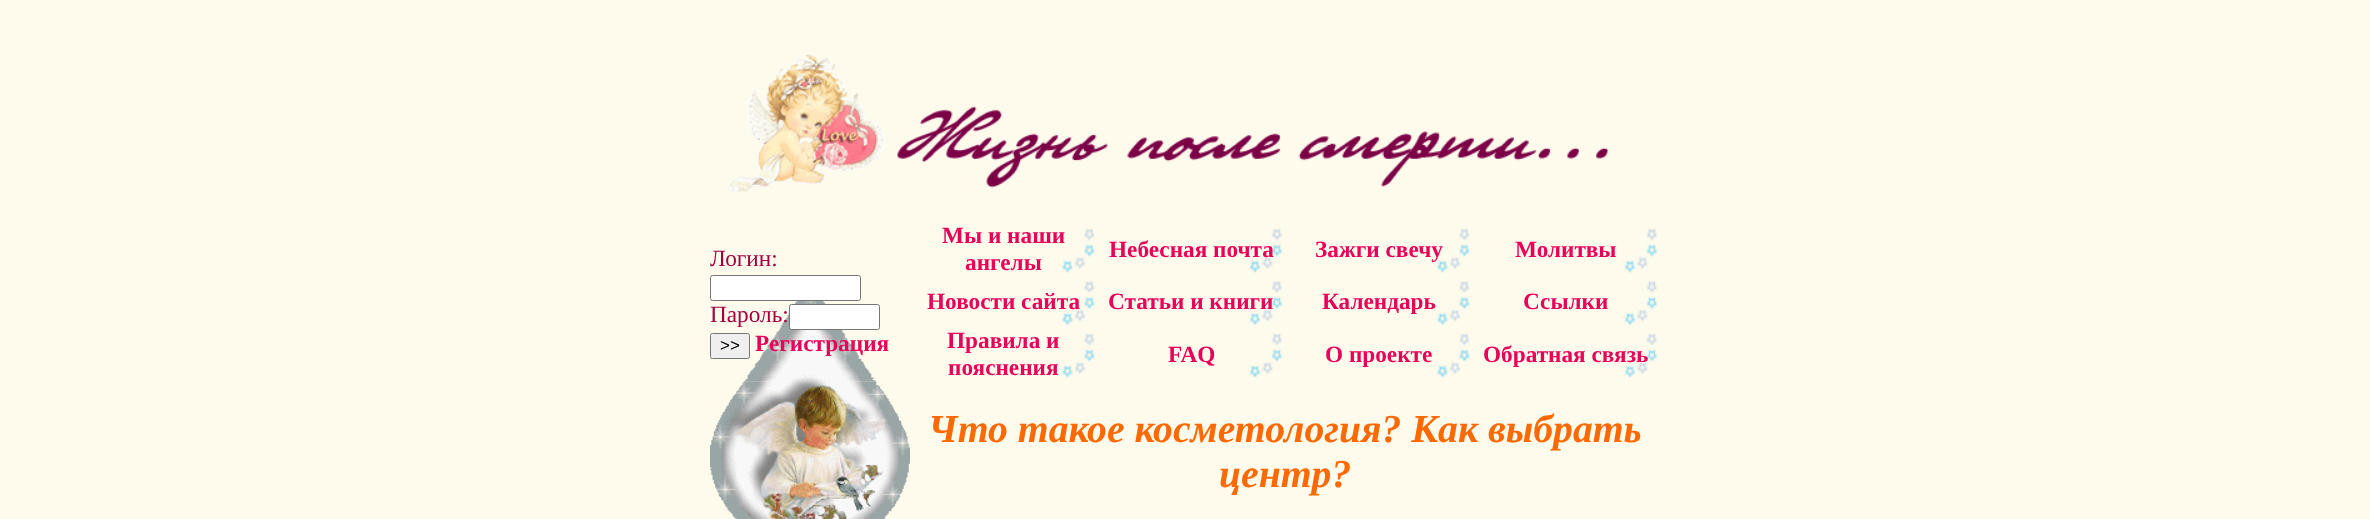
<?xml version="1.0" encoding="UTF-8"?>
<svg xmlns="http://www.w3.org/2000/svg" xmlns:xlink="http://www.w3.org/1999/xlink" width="2370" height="519">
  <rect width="100%" height="100%" fill="#fefbed" />
  <image x="727" y="54" width="157" height="138" xlink:href="image1.png" />
  <image x="897" y="106" width="711" height="82" xlink:href="image2.png" />
  <image x="744" y="301" width="132" height="81" xlink:href="image3.png" />
  <rect x="710.5" y="275.5" width="150" height="25" rx="2" fill="#ffffff" stroke="#767676" />
  <rect x="789.5" y="304.5" width="90" height="25" rx="2" fill="#ffffff" stroke="#767676" />
  <rect x="710.5" y="333.5" width="39" height="25" rx="2" fill="#efefef" stroke="#767676" />
  <image x="1061" y="228" width="34" height="45" xlink:href="image4.png" />
  <image x="1249" y="228" width="34" height="45" xlink:href="image5.png" />
  <image x="1436" y="228" width="34" height="45" xlink:href="image4.png" />
  <image x="1624" y="228" width="34" height="45" xlink:href="image6.png" />
  <image x="1061" y="281" width="34" height="45" xlink:href="image7.png" />
  <image x="1249" y="281" width="34" height="45" xlink:href="image8.png" />
  <image x="1436" y="281" width="34" height="45" xlink:href="image7.png" />
  <image x="1624" y="281" width="34" height="45" xlink:href="image9.png" />
  <image x="1061" y="333" width="34" height="45" xlink:href="image4.png" />
  <image x="1249" y="333" width="34" height="45" xlink:href="image5.png" />
  <image x="1436" y="333" width="34" height="45" xlink:href="image4.png" />
  <image x="1624" y="333" width="34" height="45" xlink:href="image6.png" />
  <image x="710" y="381" width="200" height="138" xlink:href="image10.png" />
  <text x="710" y="266" style="font-family: Liberation Serif; font-size: 23.25px; fill: #a2003e">Логин:</text>
  <text x="710" y="322" style="font-family: Liberation Serif; font-size: 23.25px; fill: #a2003e">Пароль:</text>
  <text x="720" y="351" style="font-family: Liberation Sans; font-size: 17px; fill: #000000">&gt;&gt;</text>
  <text x="755" y="351" style="font-family: Liberation Serif; font-size: 23.25px; font-weight: bold; fill: #e80058">Регистрация</text>
  <text x="942" y="243" style="font-family: Liberation Serif; font-size: 23.25px; font-weight: bold; fill: #e80058">Мы и наши</text>
  <text x="965" y="270" style="font-family: Liberation Serif; font-size: 23.25px; font-weight: bold; fill: #e80058">ангелы</text>
  <text x="1109" y="257" style="font-family: Liberation Serif; font-size: 23.25px; font-weight: bold; fill: #e80058">Небесная почта</text>
  <text x="1315" y="257" style="font-family: Liberation Serif; font-size: 23.25px; font-weight: bold; fill: #e80058">Зажги свечу</text>
  <text x="1515" y="257" style="font-family: Liberation Serif; font-size: 23.25px; font-weight: bold; fill: #e80058">Молитвы</text>
  <text x="927" y="309" style="font-family: Liberation Serif; font-size: 23.25px; font-weight: bold; fill: #e80058">Новости сайта</text>
  <text x="1108" y="309" style="font-family: Liberation Serif; font-size: 23.25px; font-weight: bold; fill: #e80058">Статьи и книги</text>
  <text x="1322" y="309" style="font-family: Liberation Serif; font-size: 23.25px; font-weight: bold; fill: #e80058">Календарь</text>
  <text x="1523" y="309" style="font-family: Liberation Serif; font-size: 23.25px; font-weight: bold; fill: #e80058">Ссылки</text>
  <text x="947" y="348" style="font-family: Liberation Serif; font-size: 23.25px; font-weight: bold; fill: #e80058">Правила и</text>
  <text x="948" y="375" style="font-family: Liberation Serif; font-size: 23.25px; font-weight: bold; fill: #e80058">пояснения</text>
  <text x="1168" y="362" style="font-family: Liberation Serif; font-size: 23.25px; font-weight: bold; fill: #e80058">FAQ</text>
  <text x="1325" y="362" style="font-family: Liberation Serif; font-size: 23.25px; font-weight: bold; fill: #e80058">О проекте</text>
  <text x="1483" y="362" style="font-family: Liberation Serif; font-size: 23.25px; font-weight: bold; fill: #e80058">Обратная связь</text>
  <text x="928" y="442" style="font-family: Liberation Serif; font-size: 39.7px; font-weight: bold; font-style: italic; fill: #ff6900">Что такое косметология? Как выбрать</text>
  <text x="1219" y="487" style="font-family: Liberation Serif; font-size: 39.7px; font-weight: bold; font-style: italic; fill: #ff6900">центр?</text>
</svg>
